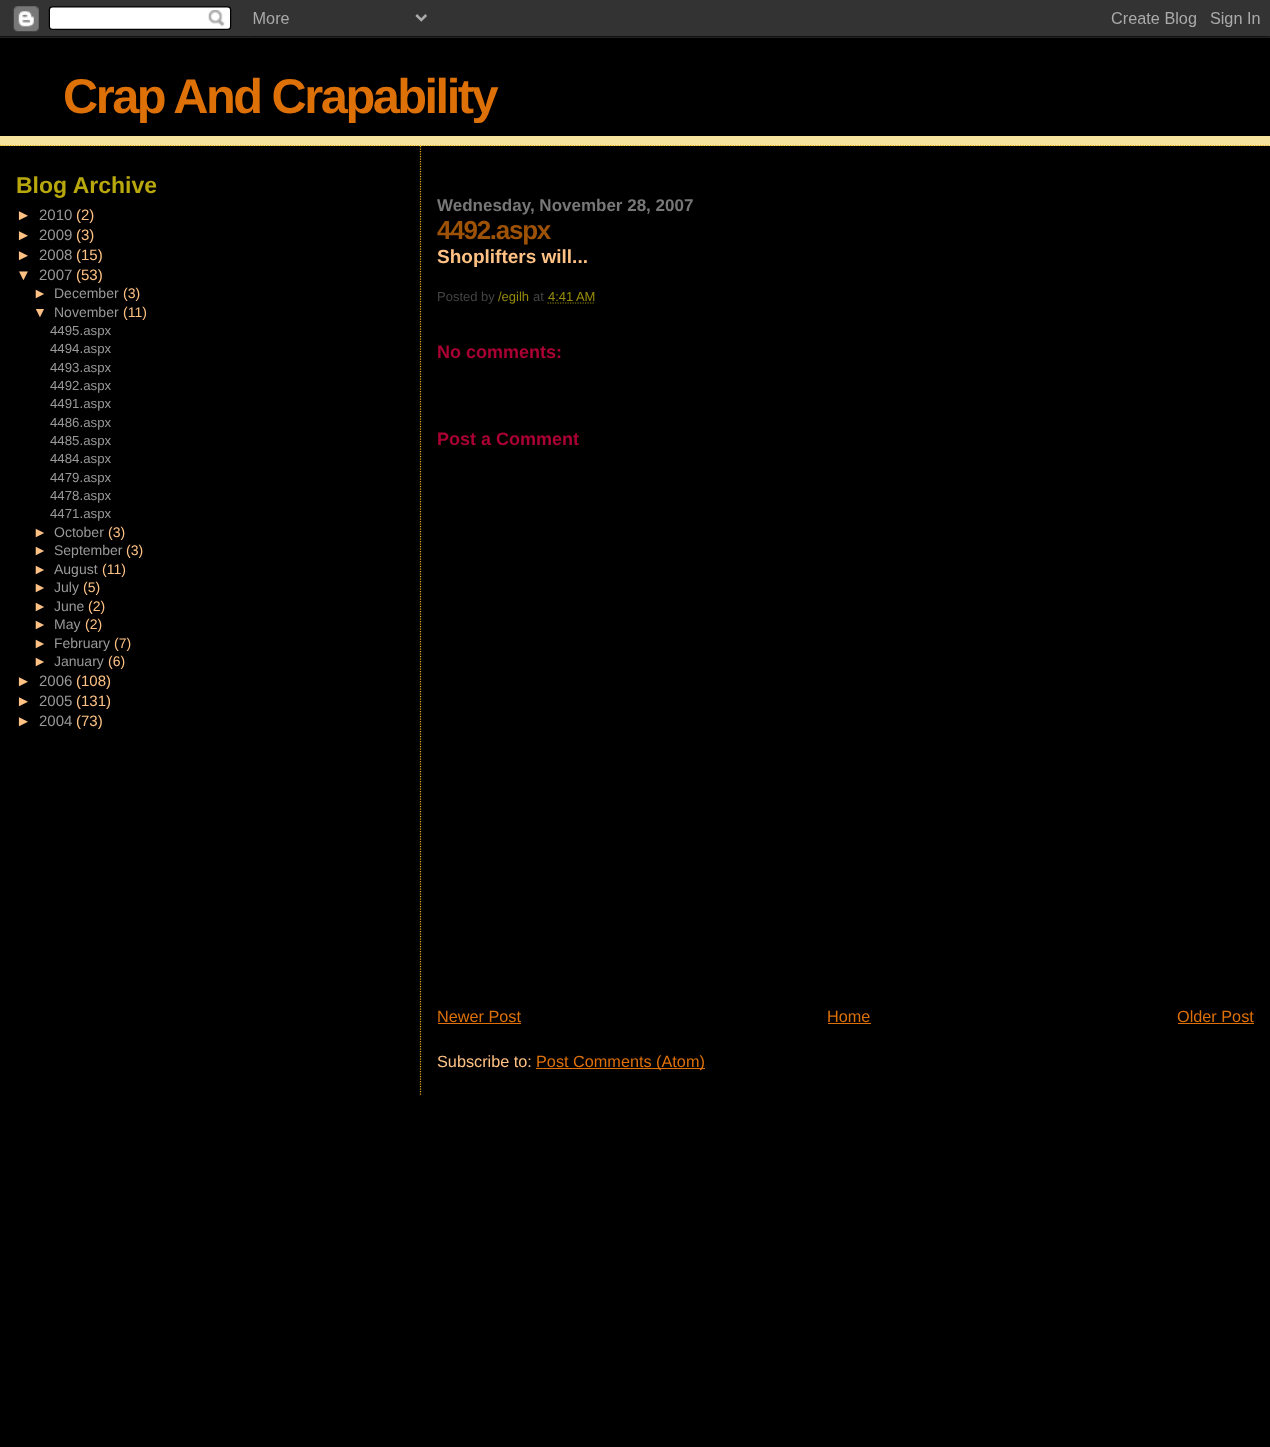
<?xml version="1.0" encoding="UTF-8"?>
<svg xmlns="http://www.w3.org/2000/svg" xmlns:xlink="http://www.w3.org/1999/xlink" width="1270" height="1447">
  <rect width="100%" height="100%" fill="#000000" />
  <image x="0" y="0" width="1270" height="38" xlink:href="image1.png" />
  <rect y="136" width="1270" height="10" fill="#f5e39e" />
  <path d="M 0 145.5 h 1270" fill="none" stroke="#e0ad12" stroke-width="1.2" stroke-dasharray="1.25 1.25" />
  <path d="M 420.5 146 v 949" fill="none" stroke="#e0ad12" stroke-width="1.2" stroke-dasharray="1.25 1.25" />
  <path d="M 547.5 303 h 47.5" fill="none" stroke="#968a0a" stroke-width="1.2" stroke-dasharray="1.25 1.25" />
  <rect x="438" y="1023" width="83" height="1" fill="#de7008" />
  <rect x="828" y="1023" width="43" height="1" fill="#de7008" />
  <rect x="1178" y="1023" width="76" height="1" fill="#de7008" />
  <rect x="536" y="1068" width="169" height="1" fill="#de7008" />
  <text x="63" y="113" style="font-family: Liberation Sans; font-size: 48.75px; font-weight: bold; letter-spacing: -2.5px; fill: #de7008">Crap And Crapability</text>
  <text x="16" y="193" style="font-family: Liberation Sans; font-size: 23px; font-weight: bold; fill: #b8a80d">Blog Archive</text>
  <text x="16" y="220" style="font-family: Liberation Sans; font-size: 15px; fill: #ffc284">►</text>
  <text x="39" y="220" style="font-family: Liberation Sans; font-size: 15px; fill: #999999">2010</text>
  <text x="76" y="220" style="font-family: Liberation Sans; font-size: 15px; fill: #ffc284">(2)</text>
  <text x="16" y="240" style="font-family: Liberation Sans; font-size: 15px; fill: #ffc284">►</text>
  <text x="39" y="240" style="font-family: Liberation Sans; font-size: 15px; fill: #999999">2009</text>
  <text x="76" y="240" style="font-family: Liberation Sans; font-size: 15px; fill: #ffc284">(3)</text>
  <text x="16" y="260" style="font-family: Liberation Sans; font-size: 15px; fill: #ffc284">►</text>
  <text x="39" y="260" style="font-family: Liberation Sans; font-size: 15px; fill: #999999">2008</text>
  <text x="76" y="260" style="font-family: Liberation Sans; font-size: 15px; fill: #ffc284">(15)</text>
  <text x="16" y="280" style="font-family: Liberation Sans; font-size: 15px; fill: #ffc284">▼</text>
  <text x="39" y="280" style="font-family: Liberation Sans; font-size: 15px; fill: #999999">2007</text>
  <text x="76" y="280" style="font-family: Liberation Sans; font-size: 15px; fill: #ffc284">(53)</text>
  <text x="33" y="298" style="font-family: Liberation Sans; font-size: 14px; fill: #ffc284">►</text>
  <text x="54" y="298" style="font-family: Liberation Sans; font-size: 14px; fill: #999999">December</text>
  <text x="123" y="298" style="font-family: Liberation Sans; font-size: 14px; fill: #ffc284">(3)</text>
  <text x="33" y="317" style="font-family: Liberation Sans; font-size: 14px; fill: #ffc284">▼</text>
  <text x="54" y="317" style="font-family: Liberation Sans; font-size: 14px; fill: #999999">November</text>
  <text x="123" y="317" style="font-family: Liberation Sans; font-size: 14px; fill: #ffc284">(11)</text>
  <text x="50" y="335" style="font-family: Liberation Sans; font-size: 13.25px; fill: #999999">4495.aspx</text>
  <text x="50" y="353" style="font-family: Liberation Sans; font-size: 13.25px; fill: #999999">4494.aspx</text>
  <text x="50" y="372" style="font-family: Liberation Sans; font-size: 13.25px; fill: #999999">4493.aspx</text>
  <text x="50" y="390" style="font-family: Liberation Sans; font-size: 13.25px; fill: #999999">4492.aspx</text>
  <text x="50" y="408" style="font-family: Liberation Sans; font-size: 13.25px; fill: #999999">4491.aspx</text>
  <text x="50" y="427" style="font-family: Liberation Sans; font-size: 13.25px; fill: #999999">4486.aspx</text>
  <text x="50" y="445" style="font-family: Liberation Sans; font-size: 13.25px; fill: #999999">4485.aspx</text>
  <text x="50" y="463" style="font-family: Liberation Sans; font-size: 13.25px; fill: #999999">4484.aspx</text>
  <text x="50" y="482" style="font-family: Liberation Sans; font-size: 13.25px; fill: #999999">4479.aspx</text>
  <text x="50" y="500" style="font-family: Liberation Sans; font-size: 13.25px; fill: #999999">4478.aspx</text>
  <text x="50" y="518" style="font-family: Liberation Sans; font-size: 13.25px; fill: #999999">4471.aspx</text>
  <text x="33" y="537" style="font-family: Liberation Sans; font-size: 14px; fill: #ffc284">►</text>
  <text x="54" y="537" style="font-family: Liberation Sans; font-size: 14px; fill: #999999">October</text>
  <text x="108" y="537" style="font-family: Liberation Sans; font-size: 14px; fill: #ffc284">(3)</text>
  <text x="33" y="555" style="font-family: Liberation Sans; font-size: 14px; fill: #ffc284">►</text>
  <text x="54" y="555" style="font-family: Liberation Sans; font-size: 14px; fill: #999999">September</text>
  <text x="126" y="555" style="font-family: Liberation Sans; font-size: 14px; fill: #ffc284">(3)</text>
  <text x="33" y="574" style="font-family: Liberation Sans; font-size: 14px; fill: #ffc284">►</text>
  <text x="54" y="574" style="font-family: Liberation Sans; font-size: 14px; fill: #999999">August</text>
  <text x="102" y="574" style="font-family: Liberation Sans; font-size: 14px; fill: #ffc284">(11)</text>
  <text x="33" y="592" style="font-family: Liberation Sans; font-size: 14px; fill: #ffc284">►</text>
  <text x="54" y="592" style="font-family: Liberation Sans; font-size: 14px; fill: #999999">July</text>
  <text x="83" y="592" style="font-family: Liberation Sans; font-size: 14px; fill: #ffc284">(5)</text>
  <text x="33" y="611" style="font-family: Liberation Sans; font-size: 14px; fill: #ffc284">►</text>
  <text x="54" y="611" style="font-family: Liberation Sans; font-size: 14px; fill: #999999">June</text>
  <text x="88" y="611" style="font-family: Liberation Sans; font-size: 14px; fill: #ffc284">(2)</text>
  <text x="33" y="629" style="font-family: Liberation Sans; font-size: 14px; fill: #ffc284">►</text>
  <text x="54" y="629" style="font-family: Liberation Sans; font-size: 14px; fill: #999999">May</text>
  <text x="85" y="629" style="font-family: Liberation Sans; font-size: 14px; fill: #ffc284">(2)</text>
  <text x="33" y="648" style="font-family: Liberation Sans; font-size: 14px; fill: #ffc284">►</text>
  <text x="54" y="648" style="font-family: Liberation Sans; font-size: 14px; fill: #999999">February</text>
  <text x="114" y="648" style="font-family: Liberation Sans; font-size: 14px; fill: #ffc284">(7)</text>
  <text x="33" y="666" style="font-family: Liberation Sans; font-size: 14px; fill: #ffc284">►</text>
  <text x="54" y="666" style="font-family: Liberation Sans; font-size: 14px; fill: #999999">January</text>
  <text x="108" y="666" style="font-family: Liberation Sans; font-size: 14px; fill: #ffc284">(6)</text>
  <text x="16" y="686" style="font-family: Liberation Sans; font-size: 15px; fill: #ffc284">►</text>
  <text x="39" y="686" style="font-family: Liberation Sans; font-size: 15px; fill: #999999">2006</text>
  <text x="76" y="686" style="font-family: Liberation Sans; font-size: 15px; fill: #ffc284">(108)</text>
  <text x="16" y="706" style="font-family: Liberation Sans; font-size: 15px; fill: #ffc284">►</text>
  <text x="39" y="706" style="font-family: Liberation Sans; font-size: 15px; fill: #999999">2005</text>
  <text x="76" y="706" style="font-family: Liberation Sans; font-size: 15px; fill: #ffc284">(131)</text>
  <text x="16" y="726" style="font-family: Liberation Sans; font-size: 15px; fill: #ffc284">►</text>
  <text x="39" y="726" style="font-family: Liberation Sans; font-size: 15px; fill: #999999">2004</text>
  <text x="76" y="726" style="font-family: Liberation Sans; font-size: 15px; fill: #ffc284">(73)</text>
  <text x="437" y="211" style="font-family: Liberation Sans; font-size: 17px; font-weight: bold; fill: #777777">Wednesday, November 28, 2007</text>
  <text x="437" y="239" style="font-family: Liberation Sans; font-size: 26px; font-weight: bold; letter-spacing: -1.25px; fill: #9e5205">4492.aspx</text>
  <text x="437" y="263" style="font-family: Liberation Sans; font-size: 19px; font-weight: bold; fill: #ffc284">Shoplifters will...</text>
  <text x="437" y="301" style="font-family: Liberation Sans; font-size: 13px; fill: #444444">Posted by</text>
  <text x="498" y="301" style="font-family: Liberation Sans; font-size: 13px; fill: #968a0a">/egilh</text>
  <text x="533" y="301" style="font-family: Liberation Sans; font-size: 13px; fill: #444444">at</text>
  <text x="548" y="301" style="font-family: Liberation Sans; font-size: 13px; fill: #968a0a">4:41 AM</text>
  <text x="437" y="358" style="font-family: Liberation Sans; font-size: 18px; font-weight: bold; fill: #aa0033">No comments:</text>
  <text x="437" y="445" style="font-family: Liberation Sans; font-size: 18px; font-weight: bold; fill: #aa0033">Post a Comment</text>
  <text x="437" y="1022" style="font-family: Liberation Sans; font-size: 16.25px; fill: #de7008">Newer Post</text>
  <text x="827" y="1022" style="font-family: Liberation Sans; font-size: 16.25px; fill: #de7008">Home</text>
  <text x="1177" y="1022" style="font-family: Liberation Sans; font-size: 16.25px; fill: #de7008">Older Post</text>
  <text x="437" y="1067" style="font-family: Liberation Sans; font-size: 16.25px; fill: #ffc284">Subscribe to:</text>
  <text x="536" y="1067" style="font-family: Liberation Sans; font-size: 16.25px; fill: #de7008">Post Comments (Atom)</text>
</svg>
